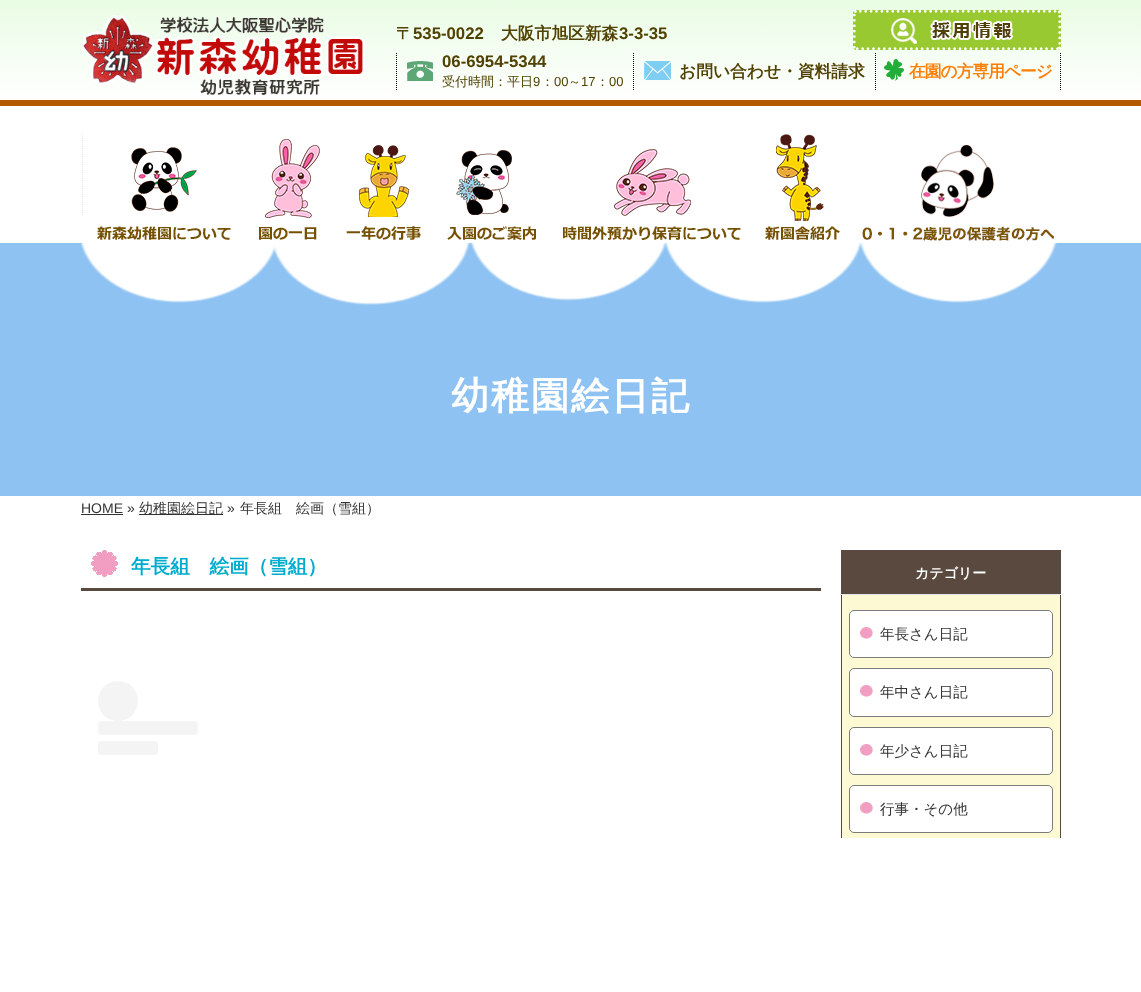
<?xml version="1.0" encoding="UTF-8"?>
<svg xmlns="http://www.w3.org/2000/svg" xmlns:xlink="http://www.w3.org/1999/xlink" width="1141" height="992">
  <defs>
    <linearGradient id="g1" gradientUnits="userSpaceOnUse" x1="571" y1="0" x2="571" y2="100"><stop offset="0" stop-color="#e9fce4" /><stop offset="1" stop-color="#ffffff" /></linearGradient>
  </defs>
  <rect width="100%" height="100%" fill="#ffffff" />
  <rect width="1141" height="91" fill="url(#g1)" />
  <rect y="100" width="1141" height="6" fill="#b25800" />
  <image x="81" y="15" width="284" height="80" xlink:href="image1.png" />
  <image x="853" y="10" width="208" height="40" xlink:href="image2.png" />
  <image x="407" y="61" width="26" height="20" xlink:href="image3.png" />
  <path d="M 633.5 53 v 38" fill="none" stroke="#000000" stroke-dasharray="1 1" />
  <path d="M 396.5 53 v 38" fill="none" stroke="#000000" stroke-dasharray="1 1" />
  <image x="644" y="61" width="27" height="19" xlink:href="image4.png" />
  <path d="M 875.5 53 v 38" fill="none" stroke="#000000" stroke-dasharray="1 1" />
  <image x="884" y="59" width="20" height="22" xlink:href="image5.png" />
  <path d="M 1060.5 53 v 38" fill="none" stroke="#000000" stroke-dasharray="1 1" />
  <path d="M 82.5 134 v 82" fill="none" stroke="#e5e5e5" stroke-dasharray="1 1" />
  <image x="97" y="147" width="134" height="93" xlink:href="image6.png" />
  <image x="259" y="139" width="61" height="101" xlink:href="image7.png" />
  <image x="346" y="145" width="75" height="95" xlink:href="image8.png" />
  <image x="447" y="150" width="89" height="90" xlink:href="image9.png" />
  <image x="563" y="149" width="178" height="91" xlink:href="image10.png" />
  <image x="765" y="134" width="75" height="106" xlink:href="image11.png" />
  <image x="862" y="145" width="193" height="96" xlink:href="image12.png" />
  <rect y="243" width="1141" height="253" fill="#8dc2f2" />
  <image x="81" y="243" width="976" height="62" xlink:href="image13.png" />
  <rect x="81" y="514" width="42" height="1" fill="#333333" />
  <rect x="139" y="514" width="84" height="1" fill="#333333" />
  <image x="91" y="550" width="27" height="27" xlink:href="image14.png" />
  <rect x="81" y="588" width="740" height="3" fill="#59493f" />
  <circle cx="118" cy="701" r="20" fill="#f4f4f4" />
  <rect x="98" y="721" width="100" height="14" rx="4" fill="#f4f4f4" />
  <rect x="98" y="741" width="60" height="14" rx="4" fill="#f4f4f4" />
  <rect x="841" y="550" width="220" height="44" fill="#59493f" />
  <rect x="841" y="594" width="220" height="1" fill="#e5e5e5" />
  <rect x="842" y="595" width="218" height="243" fill="#fdfad3" />
  <rect x="1060" y="595" width="1" height="243" fill="#59493f" />
  <rect x="841" y="595" width="1" height="243" fill="#59493f" />
  <rect x="849.5" y="610.5" width="203" height="47" rx="4.5" fill="#ffffff" stroke="#7b7b7b" />
  <image x="860" y="627" width="13" height="12" xlink:href="image15.png" />
  <rect x="849.5" y="668.5" width="203" height="48" rx="4.5" fill="#ffffff" stroke="#7b7b7b" />
  <image x="860" y="685" width="13" height="12" xlink:href="image15.png" />
  <rect x="849.5" y="727.5" width="203" height="47" rx="4.5" fill="#ffffff" stroke="#7b7b7b" />
  <image x="860" y="744" width="13" height="12" xlink:href="image15.png" />
  <rect x="849.5" y="785.5" width="203" height="47" rx="4.5" fill="#ffffff" stroke="#7b7b7b" />
  <image x="860" y="802" width="13" height="12" xlink:href="image15.png" />
  <text x="396" y="39" style="font-family: WenQuanYi Zen Hei; font-size: 16.75px; font-weight: bold; fill: #514102">〒</text>
  <text x="413" y="39" style="font-family: Liberation Sans; font-size: 16.75px; font-weight: bold; fill: #514102">535-0022</text>
  <text x="501" y="39" style="font-family: WenQuanYi Zen Hei; font-size: 16.75px; font-weight: bold; fill: #514102">大阪市旭区新森</text>
  <text x="619" y="39" style="font-family: Liberation Sans; font-size: 16.75px; font-weight: bold; fill: #514102">3-3-35</text>
  <text x="442" y="67" style="font-family: Liberation Sans; font-size: 16.75px; font-weight: bold; fill: #514102">06-6954-5344</text>
  <text x="442" y="86" style="font-family: WenQuanYi Zen Hei; font-size: 13px; font-weight: 500; fill: #514102">受付時間：平日</text>
  <text x="533" y="86" style="font-family: Liberation Sans; font-size: 13px; fill: #514102">9</text>
  <text x="541" y="86" style="font-family: WenQuanYi Zen Hei; font-size: 13px; font-weight: 500; fill: #514102">：</text>
  <text x="554" y="86" style="font-family: Liberation Sans; font-size: 13px; fill: #514102">00</text>
  <text x="568" y="86" style="font-family: WenQuanYi Zen Hei; font-size: 13px; font-weight: 500; fill: #514102">～</text>
  <text x="581" y="86" style="font-family: Liberation Sans; font-size: 13px; fill: #514102">17</text>
  <text x="596" y="86" style="font-family: WenQuanYi Zen Hei; font-size: 13px; font-weight: 500; fill: #514102">：</text>
  <text x="609" y="86" style="font-family: Liberation Sans; font-size: 13px; fill: #514102">00</text>
  <text x="679" y="77" style="font-family: WenQuanYi Zen Hei; font-size: 16.75px; font-weight: bold; fill: #514102">お問い合わせ・資料請求</text>
  <text x="909" y="77" style="font-family: WenQuanYi Zen Hei; font-size: 16.75px; font-weight: bold; letter-spacing: -1px; fill: #fc8006">在園の方専用ページ</text>
  <text x="451" y="409" style="font-family: WenQuanYi Zen Hei; font-size: 38px; font-weight: bold; letter-spacing: 2px; fill: #ffffff">幼稚園絵日記</text>
  <text x="81" y="513" style="font-family: Liberation Sans; font-size: 14px; fill: #333333">HOME »</text>
  <text x="139" y="513" style="font-family: WenQuanYi Zen Hei; font-size: 14px; font-weight: 500; fill: #333333">幼稚園絵日記</text>
  <text x="227" y="513" style="font-family: Liberation Sans; font-size: 14px; fill: #333333">»</text>
  <text x="240" y="513" style="font-family: WenQuanYi Zen Hei; font-size: 14px; font-weight: 500; fill: #333333">年長組　絵画（雪組）</text>
  <text x="131" y="573" style="font-family: WenQuanYi Zen Hei; font-size: 19.6px; font-weight: bold; fill: #00accd">年長組　絵画（雪組）</text>
  <text x="915" y="578" style="font-family: WenQuanYi Zen Hei; font-size: 14px; font-weight: bold; fill: #ffffff">カテゴリー</text>
  <text x="880" y="639" style="font-family: WenQuanYi Zen Hei; font-size: 14.5px; font-weight: 500; fill: #333333">年長さん日記</text>
  <text x="880" y="697" style="font-family: WenQuanYi Zen Hei; font-size: 14.5px; font-weight: 500; fill: #333333">年中さん日記</text>
  <text x="880" y="756" style="font-family: WenQuanYi Zen Hei; font-size: 14.5px; font-weight: 500; fill: #333333">年少さん日記</text>
  <text x="880" y="814" style="font-family: WenQuanYi Zen Hei; font-size: 14.5px; font-weight: 500; fill: #333333">行事・その他</text>
</svg>
